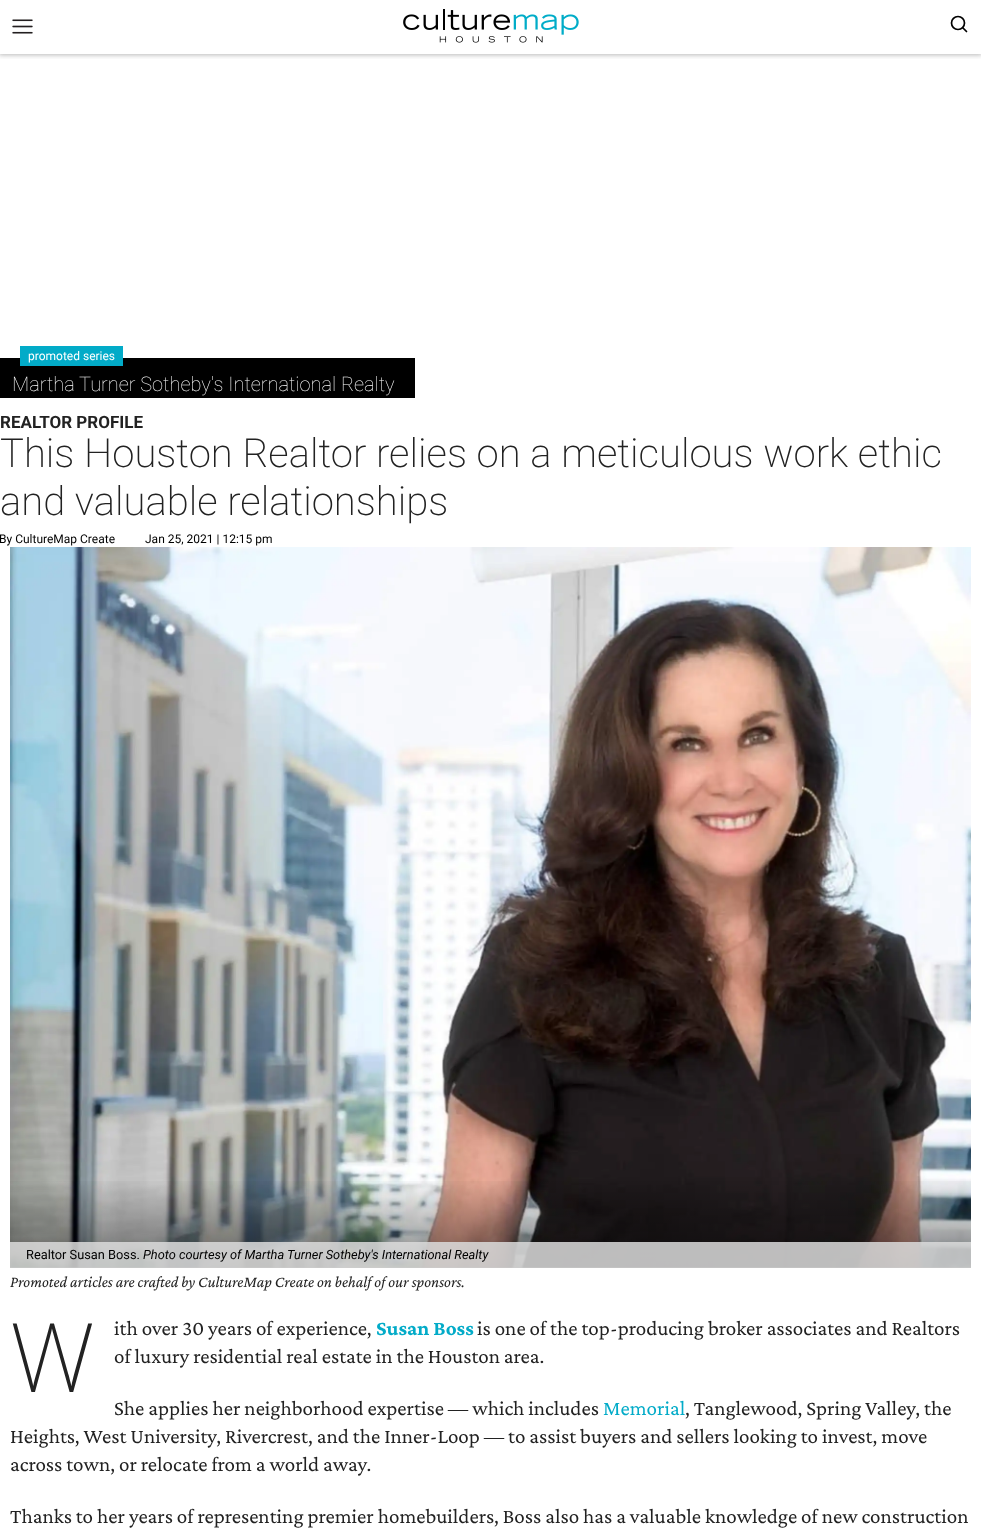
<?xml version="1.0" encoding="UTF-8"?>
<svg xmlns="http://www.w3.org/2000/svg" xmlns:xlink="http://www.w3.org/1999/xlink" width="981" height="1529">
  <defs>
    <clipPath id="clip1"><rect x="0" y="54" width="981" height="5" /></clipPath>
    <linearGradient id="g1" gradientUnits="userSpaceOnUse" x1="491" y1="1172" x2="491" y2="1268"><stop offset="0.05" stop-color="#000000" stop-opacity="0" /><stop offset="1" stop-color="#000000" stop-opacity="0.5" /></linearGradient>
  </defs>
  <rect width="100%" height="100%" fill="#ffffff" />
  <g clip-path="url(#clip1)">
    <rect x="-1" y="-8" width="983" height="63" fill="#000000" fill-opacity="0.28" filter="blur(2.5px)" />
  </g>
  <image x="12" y="19" width="21" height="15" xlink:href="image1.png" />
  <image x="403" y="9" width="176" height="34" xlink:href="image2.png" />
  <circle cx="958" cy="23" r="6.5" fill="none" stroke="#000000" stroke-width="1.7" />
  <path d="M 966.5 31.5 l -3.5 -3.5" fill="none" stroke="#000000" stroke-width="1.7" stroke-linecap="round" stroke-linejoin="round" />
  <rect y="358" width="415" height="40" fill="#000000" />
  <rect x="20" y="346" width="103" height="20" fill="#02abc8" />
  <image x="10" y="547" width="961" height="721" xlink:href="image3.png" />
  <rect x="10" y="1181" width="961" height="87" fill="url(#g1)" />
  <rect x="10" y="1242" width="961" height="26" fill="#dcdcdc" fill-opacity="0.85" />
  <text x="28" y="360" style="font-family: Roboto; font-size: 12px; fill: #ffffff">promoted series</text>
  <text x="12" y="391" style="font-family: Roboto; font-size: 20px; font-weight: 100; fill: #ffffff">Martha Turner Sotheby's International Realty</text>
  <text x="0" y="428" style="font-family: Roboto; font-size: 17px; font-weight: bold; fill: #222222">REALTOR PROFILE</text>
  <text x="0" y="467" style="font-family: Roboto; font-size: 40px; font-weight: 200; fill: #222222">This Houston Realtor relies on a meticulous work ethic</text>
  <text x="0" y="515" style="font-family: Roboto; font-size: 40px; font-weight: 200; fill: #222222">and valuable relationships</text>
  <text x="-1" y="543" style="font-family: Roboto; font-size: 12px; fill: #000000">By CultureMap Create</text>
  <text x="145" y="543" style="font-family: Roboto; font-size: 12px; fill: #000000">Jan 25, 2021 | 12:15 pm</text>
  <text x="26" y="1259" style="font-family: Roboto; font-size: 12.8px; fill: #000000">Realtor Susan Boss.</text>
  <text x="143" y="1259" style="font-family: Roboto; font-size: 12.8px; font-style: italic; fill: #000000">Photo courtesy of Martha Turner Sotheby's International Realty</text>
  <text x="10" y="1287" style="font-family: Crimson Pro; font-size: 16px; font-style: italic; fill: #222222">Promoted articles are crafted by CultureMap Create on behalf of our sponsors.</text>
  <text x="10" y="1392" style="font-family: Noto Sans; font-size: 96px; font-weight: 200; fill: #222222">W</text>
  <text x="114" y="1335" style="font-family: Crimson Pro; font-size: 21px; fill: #222222">ith over 30 years of experience,</text>
  <text x="376" y="1335" style="font-family: Crimson Pro; font-size: 21px; font-weight: bold; fill: #02abc8">Susan Boss</text>
  <text x="477" y="1335" style="font-family: Crimson Pro; font-size: 21px; fill: #222222">is one of the top-producing broker associates and Realtors</text>
  <text x="114" y="1363" style="font-family: Crimson Pro; font-size: 21px; fill: #222222">of luxury residential real estate in the Houston area.</text>
  <text x="114" y="1415" style="font-family: Crimson Pro; font-size: 21px; fill: #222222">She applies her neighborhood expertise — which includes</text>
  <text x="603" y="1415" style="font-family: Crimson Pro; font-size: 21px; fill: #02abc8">Memorial</text>
  <text x="685" y="1415" style="font-family: Crimson Pro; font-size: 21px; fill: #222222">, Tanglewood, Spring Valley, the</text>
  <text x="10" y="1443" style="font-family: Crimson Pro; font-size: 21px; fill: #222222">Heights, West University, Rivercrest, and the Inner-Loop — to assist buyers and sellers looking to invest, move</text>
  <text x="10" y="1471" style="font-family: Crimson Pro; font-size: 21px; fill: #222222">across town, or relocate from a world away.</text>
  <text x="10" y="1523" style="font-family: Crimson Pro; font-size: 21px; fill: #222222">Thanks to her years of representing premier homebuilders, Boss also has a valuable knowledge of new construction</text>
</svg>
